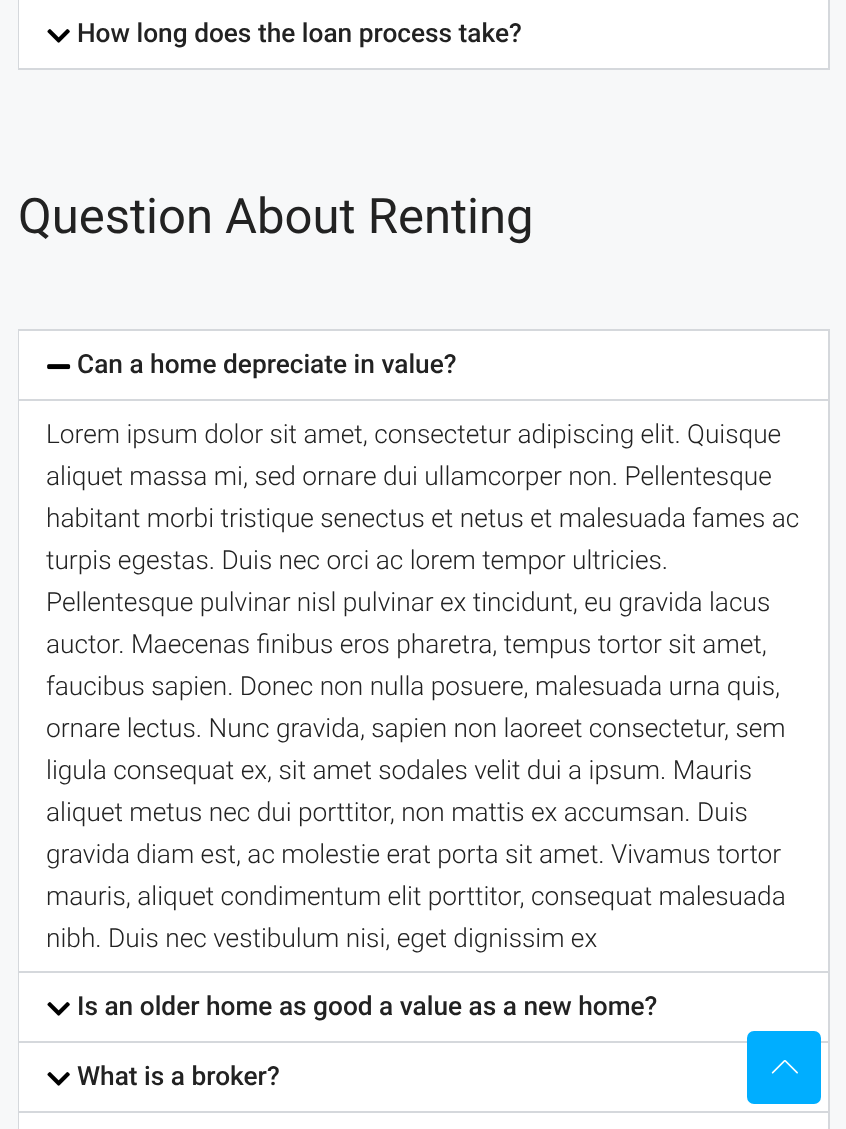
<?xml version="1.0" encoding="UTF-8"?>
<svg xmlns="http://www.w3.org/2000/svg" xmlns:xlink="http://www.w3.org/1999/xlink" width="846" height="1129">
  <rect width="100%" height="100%" fill="#f7f8f9" />
  <rect x="828" width="2" height="70" fill="#d5d8dc" />
  <rect x="18" y="68" width="812" height="2" fill="#d5d8dc" />
  <rect x="18" width="2" height="70" fill="#d5d8dc" />
  <rect x="19" width="809" height="68" fill="#ffffff" />
  <image x="47" y="29" width="23" height="14" xlink:href="image1.png" />
  <rect x="19" y="330" width="810" height="642" fill="none" stroke="#d5d8dc" stroke-width="2" />
  <rect x="19" y="331" width="809" height="68" fill="#ffffff" />
  <image x="47" y="364" width="24" height="6" xlink:href="image2.png" />
  <rect x="19" y="401" width="809" height="570" fill="#ffffff" />
  <rect x="19" y="399" width="809" height="2" fill="#d5d8dc" />
  <rect x="828" y="973" width="2" height="156" fill="#d5d8dc" />
  <rect x="18" y="1041" width="812" height="2" fill="#d5d8dc" />
  <rect x="18" y="973" width="2" height="70" fill="#d5d8dc" />
  <rect x="19" y="973" width="809" height="68" fill="#ffffff" />
  <image x="47" y="1002" width="23" height="14" xlink:href="image1.png" />
  <rect x="18" y="1111" width="812" height="2" fill="#d5d8dc" />
  <rect x="18" y="1043" width="2" height="70" fill="#d5d8dc" />
  <rect x="19" y="1043" width="809" height="68" fill="#ffffff" />
  <image x="47" y="1072" width="23" height="14" xlink:href="image1.png" />
  <rect x="18" y="1113" width="1" height="16" fill="#d5d8dc" />
  <rect x="19" y="1113" width="809" height="16" fill="#ffffff" />
  <rect x="748" y="1032" width="72" height="71" rx="6" fill="#00aeff" stroke="#00aeff" stroke-width="2" />
  <image x="771" y="1060" width="27" height="14" xlink:href="image3.png" />
  <text x="77" y="42" style="font-family: Roboto; font-size: 26.25px; font-weight: 500; fill: #222222">How long does the loan process take?</text>
  <text x="18" y="233" style="font-family: Roboto; font-size: 49px; fill: #222222">Question About Renting</text>
  <text x="77" y="373" style="font-family: Roboto; font-size: 26.25px; font-weight: 500; fill: #222222">Can a home depreciate in value?</text>
  <text x="46" y="443" style="font-family: Roboto; font-size: 26.25px; font-weight: 300; fill: #222222">Lorem ipsum dolor sit amet, consectetur adipiscing elit. Quisque</text>
  <text x="46" y="485" style="font-family: Roboto; font-size: 26.25px; font-weight: 300; fill: #222222">aliquet massa mi, sed ornare dui ullamcorper non. Pellentesque</text>
  <text x="46" y="527" style="font-family: Roboto; font-size: 26.25px; font-weight: 300; fill: #222222">habitant morbi tristique senectus et netus et malesuada fames ac</text>
  <text x="46" y="569" style="font-family: Roboto; font-size: 26.25px; font-weight: 300; fill: #222222">turpis egestas. Duis nec orci ac lorem tempor ultricies.</text>
  <text x="46" y="611" style="font-family: Roboto; font-size: 26.25px; font-weight: 300; fill: #222222">Pellentesque pulvinar nisl pulvinar ex tincidunt, eu gravida lacus</text>
  <text x="46" y="653" style="font-family: Roboto; font-size: 26.25px; font-weight: 300; fill: #222222">auctor. Maecenas finibus eros pharetra, tempus tortor sit amet,</text>
  <text x="46" y="695" style="font-family: Roboto; font-size: 26.25px; font-weight: 300; fill: #222222">faucibus sapien. Donec non nulla posuere, malesuada urna quis,</text>
  <text x="46" y="737" style="font-family: Roboto; font-size: 26.25px; font-weight: 300; fill: #222222">ornare lectus. Nunc gravida, sapien non laoreet consectetur, sem</text>
  <text x="46" y="779" style="font-family: Roboto; font-size: 26.25px; font-weight: 300; fill: #222222">ligula consequat ex, sit amet sodales velit dui a ipsum. Mauris</text>
  <text x="46" y="821" style="font-family: Roboto; font-size: 26.25px; font-weight: 300; fill: #222222">aliquet metus nec dui porttitor, non mattis ex accumsan. Duis</text>
  <text x="46" y="863" style="font-family: Roboto; font-size: 26.25px; font-weight: 300; fill: #222222">gravida diam est, ac molestie erat porta sit amet. Vivamus tortor</text>
  <text x="46" y="905" style="font-family: Roboto; font-size: 26.25px; font-weight: 300; fill: #222222">mauris, aliquet condimentum elit porttitor, consequat malesuada</text>
  <text x="46" y="947" style="font-family: Roboto; font-size: 26.25px; font-weight: 300; fill: #222222">nibh. Duis nec vestibulum nisi, eget dignissim ex</text>
  <text x="77" y="1015" style="font-family: Roboto; font-size: 26.25px; font-weight: 500; fill: #222222">Is an older home as good a value as a new home?</text>
  <text x="77" y="1085" style="font-family: Roboto; font-size: 26.25px; font-weight: 500; fill: #222222">What is a broker?</text>
</svg>
